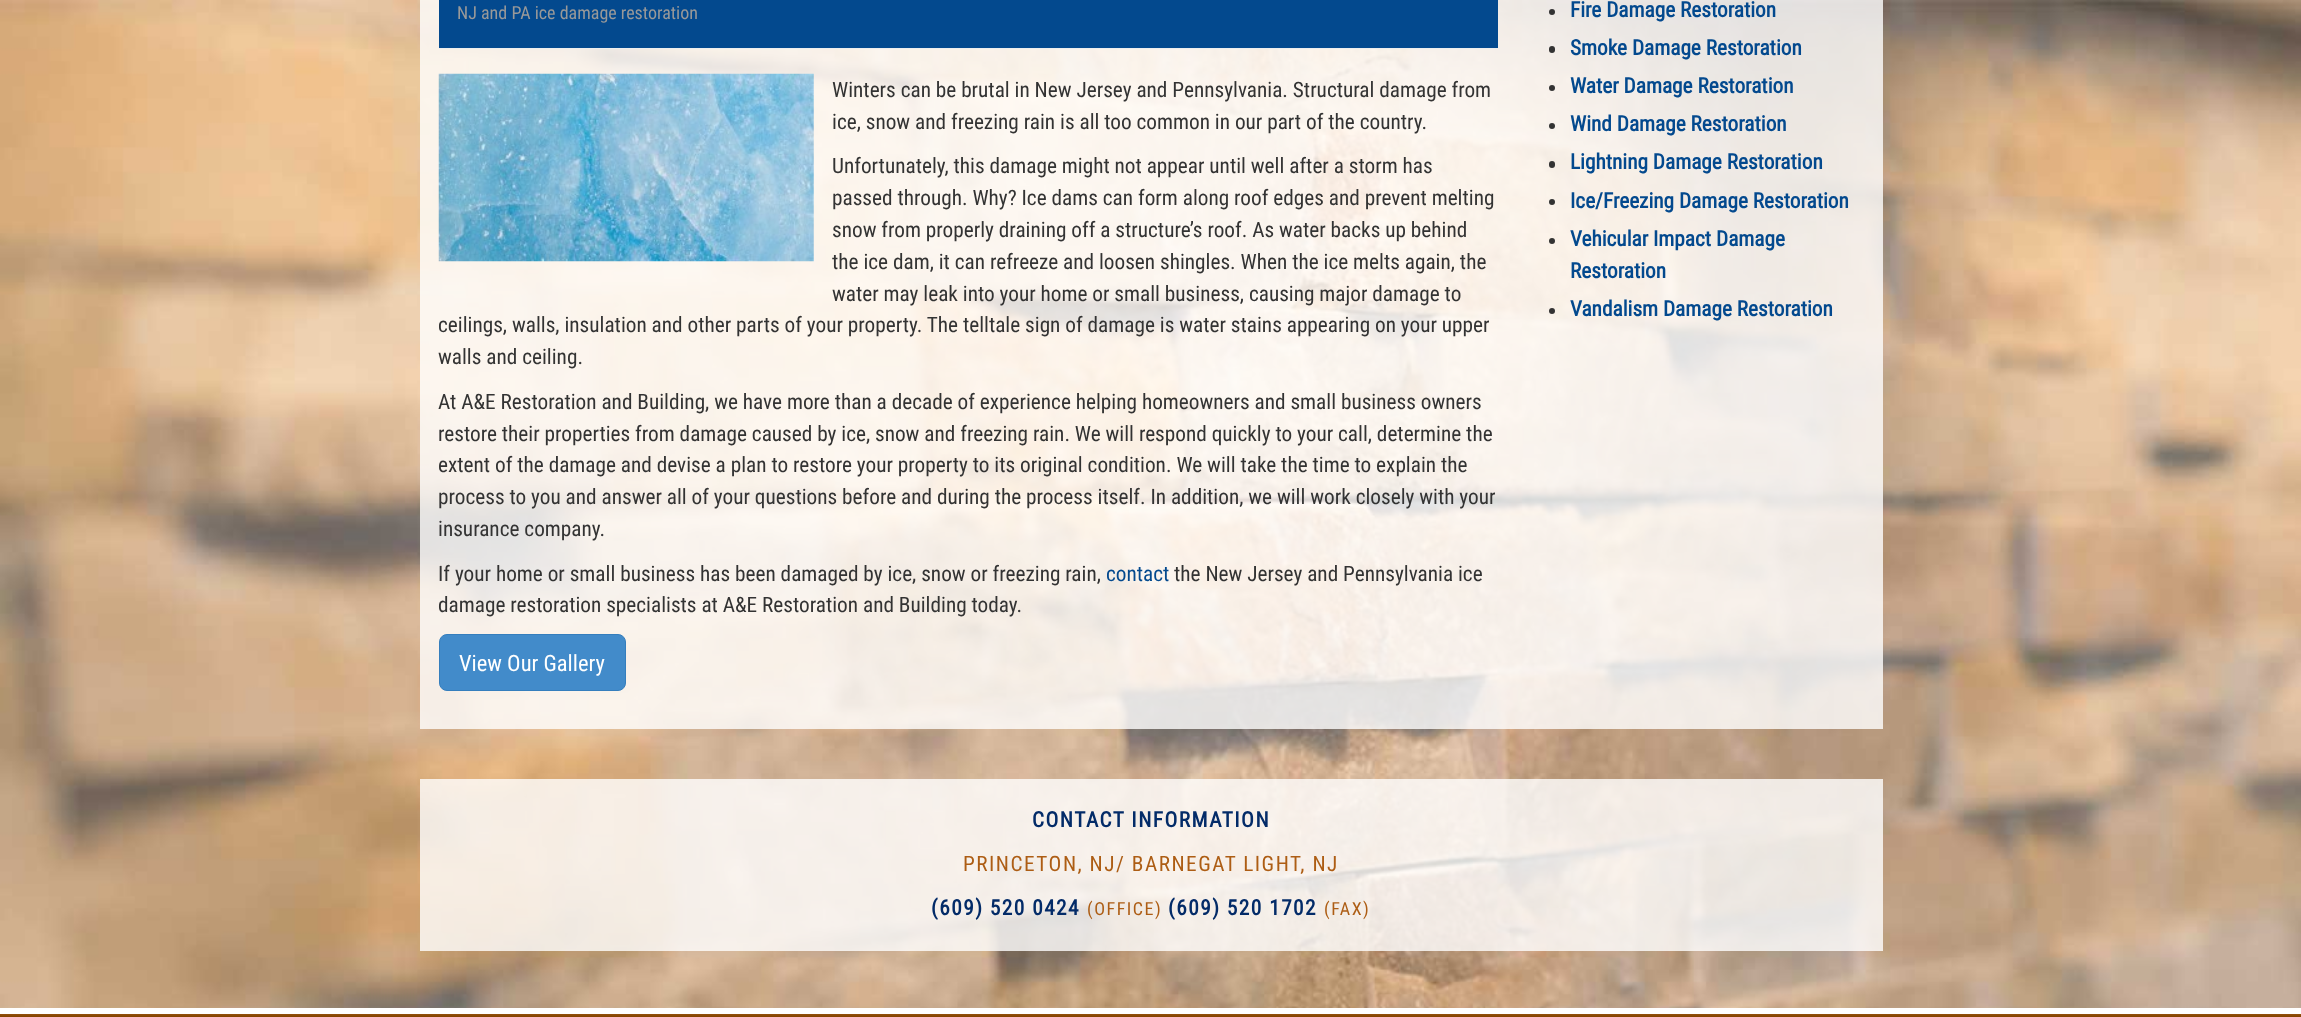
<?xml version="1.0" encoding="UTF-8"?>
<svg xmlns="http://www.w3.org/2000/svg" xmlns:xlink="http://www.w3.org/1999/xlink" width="2301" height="1017">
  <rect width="100%" height="100%" fill="#ffffff" />
  <image x="0" y="0" width="2301" height="1008" xlink:href="image1.png" />
  <rect x="420" width="1463" height="729" fill="#ffffff" fill-opacity="0.8" />
  <rect x="439" width="1059" height="48" fill="#03498e" />
  <rect x="439" y="48" width="1059" height="1" fill="#eeeeee" />
  <image x="438" y="73" width="376" height="189" xlink:href="image2.png" />
  <rect x="439.5" y="634.5" width="186" height="56" rx="7.5" fill="#428bca" stroke="#357ebd" />
  <circle cx="1552" cy="12" r="3" fill="#333333" />
  <rect x="1549" y="46" width="6" height="7" rx="3" fill="#333333" />
  <circle cx="1552" cy="88" r="3" fill="#333333" />
  <circle cx="1552" cy="126" r="3" fill="#333333" />
  <rect x="1549" y="161" width="6" height="7" rx="3" fill="#333333" />
  <circle cx="1552" cy="202" r="3" fill="#333333" />
  <circle cx="1552" cy="241" r="3" fill="#333333" />
  <circle cx="1552" cy="311" r="3" fill="#333333" />
  <rect x="420" y="779" width="1463" height="172" fill="#ffffff" fill-opacity="0.8" />
  <image x="0" y="1014" width="2301" height="3" xlink:href="image3.png" />
  <text x="457" y="19" style="font-family: Roboto Condensed; font-size: 18px; fill: #999999">NJ and PA ice damage restoration</text>
  <text x="832" y="97" style="font-family: Roboto Condensed; font-size: 21.25px; fill: #333333">Winters can be brutal in New Jersey and Pennsylvania. Structural damage from</text>
  <text x="832" y="129" style="font-family: Roboto Condensed; font-size: 21.25px; fill: #333333">ice, snow and freezing rain is all too common in our part of the country.</text>
  <text x="832" y="173" style="font-family: Roboto Condensed; font-size: 21.25px; fill: #333333">Unfortunately, this damage might not appear until well after a storm has</text>
  <text x="832" y="205" style="font-family: Roboto Condensed; font-size: 21.25px; fill: #333333">passed through. Why? Ice dams can form along roof edges and prevent melting</text>
  <text x="832" y="237" style="font-family: Roboto Condensed; font-size: 21.25px; fill: #333333">snow from properly draining off a structure’s roof. As water backs up behind</text>
  <text x="832" y="269" style="font-family: Roboto Condensed; font-size: 21.25px; fill: #333333">the ice dam, it can refreeze and loosen shingles. When the ice melts again, the</text>
  <text x="832" y="301" style="font-family: Roboto Condensed; font-size: 21.25px; fill: #333333">water may leak into your home or small business, causing major damage to</text>
  <text x="438" y="332" style="font-family: Roboto Condensed; font-size: 21.25px; fill: #333333">ceilings, walls, insulation and other parts of your property. The telltale sign of damage is water stains appearing on your upper</text>
  <text x="438" y="364" style="font-family: Roboto Condensed; font-size: 21.25px; fill: #333333">walls and ceiling.</text>
  <text x="438" y="409" style="font-family: Roboto Condensed; font-size: 21.25px; fill: #333333">At A&amp;E Restoration and Building, we have more than a decade of experience helping homeowners and small business owners</text>
  <text x="438" y="441" style="font-family: Roboto Condensed; font-size: 21.25px; fill: #333333">restore their properties from damage caused by ice, snow and freezing rain. We will respond quickly to your call, determine the</text>
  <text x="438" y="472" style="font-family: Roboto Condensed; font-size: 21.25px; fill: #333333">extent of the damage and devise a plan to restore your property to its original condition. We will take the time to explain the</text>
  <text x="438" y="504" style="font-family: Roboto Condensed; font-size: 21.25px; fill: #333333">process to you and answer all of your questions before and during the process itself. In addition, we will work closely with your</text>
  <text x="438" y="536" style="font-family: Roboto Condensed; font-size: 21.25px; fill: #333333">insurance company.</text>
  <text x="438" y="581" style="font-family: Roboto Condensed; font-size: 21.25px; fill: #333333">If your home or small business has been damaged by ice, snow or freezing rain,</text>
  <text x="1106" y="581" style="font-family: Roboto Condensed; font-size: 21.25px; fill: #03498e">contact</text>
  <text x="1174" y="581" style="font-family: Roboto Condensed; font-size: 21.25px; fill: #333333">the New Jersey and Pennsylvania ice</text>
  <text x="438" y="612" style="font-family: Roboto Condensed; font-size: 21.25px; fill: #333333">damage restoration specialists at A&amp;E Restoration and Building today.</text>
  <text x="459" y="671" style="font-family: Roboto Condensed; font-size: 22.5px; fill: #ffffff">View Our Gallery</text>
  <text x="1570" y="17" style="font-family: Roboto Condensed; font-size: 21.25px; font-weight: bold; fill: #03498e">Fire Damage Restoration</text>
  <text x="1570" y="55" style="font-family: Roboto Condensed; font-size: 21.25px; font-weight: bold; fill: #03498e">Smoke Damage Restoration</text>
  <text x="1570" y="93" style="font-family: Roboto Condensed; font-size: 21.25px; font-weight: bold; fill: #03498e">Water Damage Restoration</text>
  <text x="1570" y="131" style="font-family: Roboto Condensed; font-size: 21.25px; font-weight: bold; fill: #03498e">Wind Damage Restoration</text>
  <text x="1570" y="169" style="font-family: Roboto Condensed; font-size: 21.25px; font-weight: bold; fill: #03498e">Lightning Damage Restoration</text>
  <text x="1570" y="208" style="font-family: Roboto Condensed; font-size: 21.25px; font-weight: bold; fill: #03498e">Ice/Freezing Damage Restoration</text>
  <text x="1570" y="246" style="font-family: Roboto Condensed; font-size: 21.25px; font-weight: bold; fill: #03498e">Vehicular Impact Damage</text>
  <text x="1570" y="278" style="font-family: Roboto Condensed; font-size: 21.25px; font-weight: bold; fill: #03498e">Restoration</text>
  <text x="1570" y="316" style="font-family: Roboto Condensed; font-size: 21.25px; font-weight: bold; fill: #03498e">Vandalism Damage Restoration</text>
  <text x="1032" y="827" style="font-family: Roboto Condensed; font-size: 21.25px; font-weight: bold; letter-spacing: 1.5px; fill: #032b68">CONTACT INFORMATION</text>
  <text x="963" y="871" style="font-family: Roboto Condensed; font-size: 21.25px; letter-spacing: 1.5px; fill: #ad5d14">PRINCETON, NJ/ BARNEGAT LIGHT, NJ</text>
  <text x="931" y="915" style="font-family: Roboto Condensed; font-size: 21.25px; font-weight: bold; letter-spacing: 1.5px; fill: #032b68">(609) 520 0424</text>
  <text x="1087" y="915" style="font-family: Roboto Condensed; font-size: 18px; letter-spacing: 1.5px; fill: #ad5d14">(OFFICE)</text>
  <text x="1168" y="915" style="font-family: Roboto Condensed; font-size: 21.25px; font-weight: bold; letter-spacing: 1.5px; fill: #032b68">(609) 520 1702</text>
  <text x="1324" y="915" style="font-family: Roboto Condensed; font-size: 18px; letter-spacing: 1.5px; fill: #ad5d14">(FAX)</text>
</svg>
